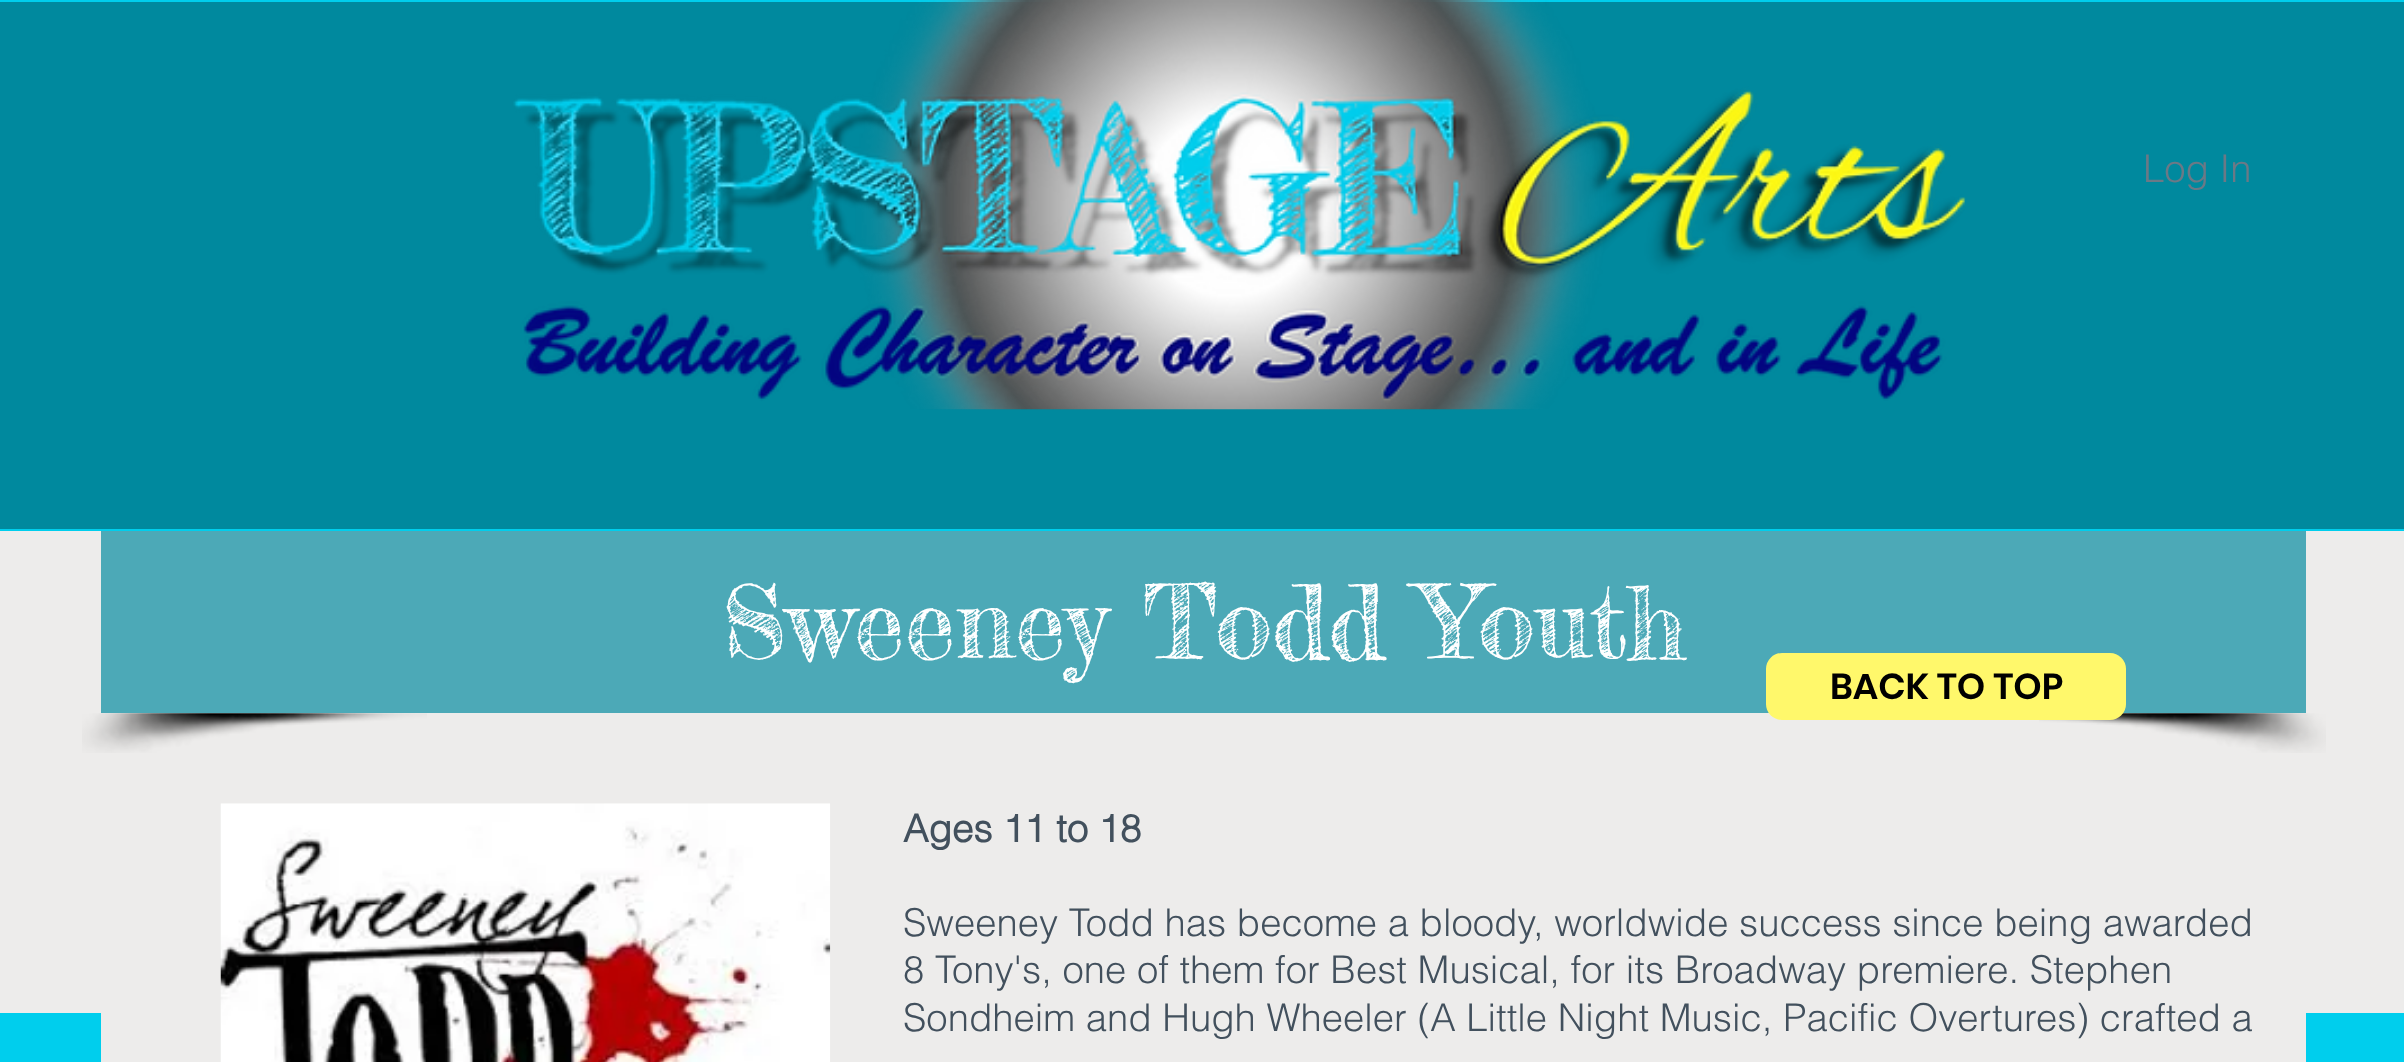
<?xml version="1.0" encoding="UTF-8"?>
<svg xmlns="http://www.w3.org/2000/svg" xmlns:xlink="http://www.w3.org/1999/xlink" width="2404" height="1062">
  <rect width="100%" height="100%" fill="#edeceb" />
  <rect width="2404" height="2" fill="#00ceed" />
  <rect y="529" width="2404" height="2" fill="#00ceed" />
  <rect y="2" width="2404" height="527" fill="#00899e" />
  <image x="513" y="0" width="1453" height="410" xlink:href="image1.png" />
  <rect y="1013" width="2404" height="49" fill="#00ceed" />
  <rect x="101" y="531" width="2205" height="182" fill="#4ca9b7" />
  <image x="82" y="713" width="345" height="40" xlink:href="image2.png" />
  <image x="2039" y="713" width="287" height="40" xlink:href="image3.png" />
  <rect x="101" y="1013" width="2205" height="49" fill="#edeceb" />
  <image x="220" y="803" width="611" height="259" xlink:href="image4.png" />
  <rect x="1766" y="653" width="360" height="67" rx="16" fill="#fff86b" />
  <text x="2143" y="182" style="font-family: helvetica; font-size: 38.25px; font-weight: 300; fill: #6b7986">Log In</text>
  <text x="722" y="659" style="font-family: Fredericka the Great; font-size: 101.25px; fill: #ffffff">Sweeney Todd Youth</text>
  <text x="903" y="842" style="font-family: helvetica; font-size: 38.25px; font-weight: bold; fill: #42505d">Ages 11 to 18</text>
  <text x="903" y="936" style="font-family: helvetica; font-size: 38.25px; font-weight: 300; fill: #42505d">Sweeney Todd has become a bloody, worldwide success since being awarded</text>
  <text x="903" y="983" style="font-family: helvetica; font-size: 38.25px; font-weight: 300; fill: #42505d">8 Tony's, one of them for Best Musical, for its Broadway premiere. Stephen</text>
  <text x="903" y="1031" style="font-family: helvetica; font-size: 38.25px; font-weight: 300; fill: #42505d">Sondheim and Hugh Wheeler (A Little Night Music, Pacific Overtures) crafted a</text>
  <text x="1830" y="699" style="font-family: Poppins; font-size: 36px; font-weight: 600; fill: #000000">BACK TO TOP</text>
</svg>
